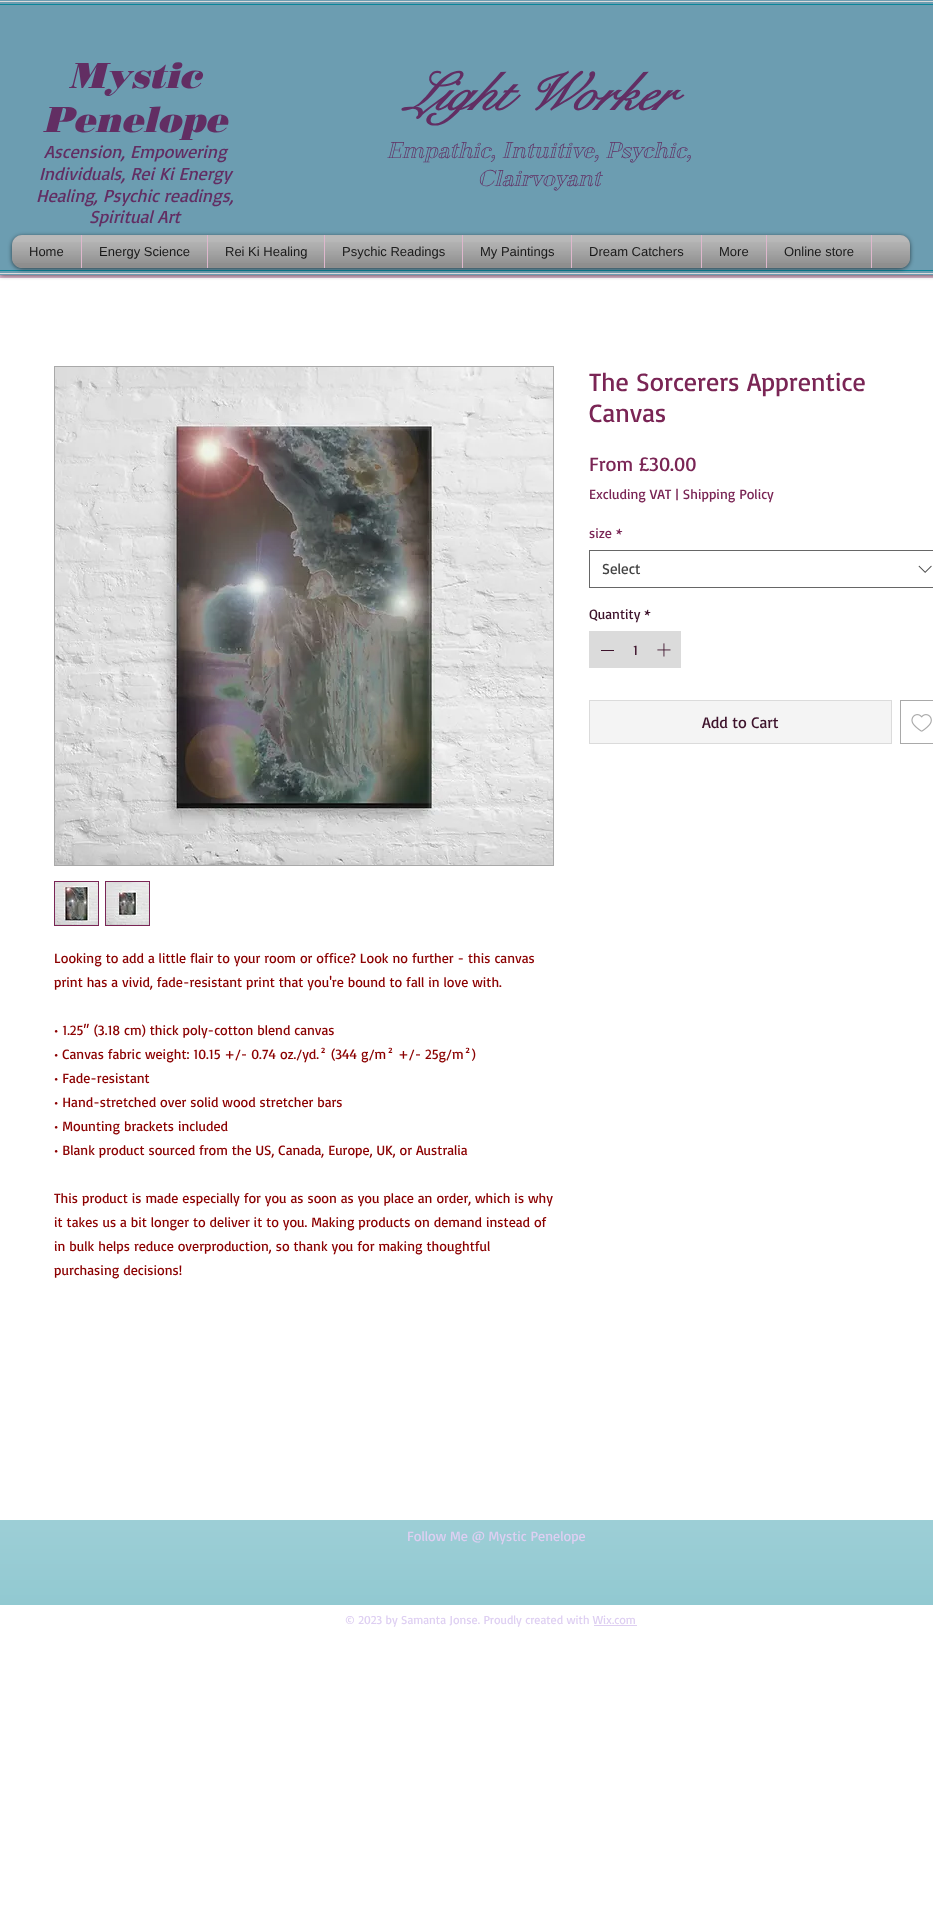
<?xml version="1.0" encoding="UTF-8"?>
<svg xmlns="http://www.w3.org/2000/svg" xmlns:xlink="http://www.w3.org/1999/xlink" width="933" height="1928">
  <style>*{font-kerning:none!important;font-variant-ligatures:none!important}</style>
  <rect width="100%" height="100%" fill="#ffffff" />
  <rect y="275" width="933" height="3" fill="#deb7cd" />
  <rect width="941" height="275" fill="#000000" fill-opacity="0.7" filter="blur(2.5px)" />
  <rect width="933" height="275" fill="#6c9db1" />
  <rect y="1" width="933" height="1" fill="#dbdbdb" />
  <rect y="273" width="933" height="1" fill="#dbdbdb" />
  <rect y="4" width="933" height="1" fill="#0b8699" />
  <rect y="270" width="933" height="1" fill="#0b8699" />
  <rect x="12" y="236" width="898" height="33" rx="10" fill="#000000" fill-opacity="0.6" filter="blur(2px)" />
  <image x="12" y="235" width="898" height="28" xlink:href="image1.png" />
  <image x="12" y="244" width="898" height="24" xlink:href="image2.png" />
  <path d="M 22 235 h 59 v 33 h -59 c -5.5 0 -10 -4.5 -10 -10 v -13 c 0 -5.5 4.5 -10 10 -10 z" fill="#a9a9a9" />
  <rect x="82" y="235" width="125" height="33" fill="#a9a9a9" />
  <rect x="81" y="235" width="1" height="33" fill="#deb7cd" />
  <rect x="208" y="235" width="116" height="33" fill="#a9a9a9" />
  <rect x="207" y="235" width="1" height="33" fill="#deb7cd" />
  <rect x="325" y="235" width="137" height="33" fill="#a9a9a9" />
  <rect x="324" y="235" width="1" height="33" fill="#deb7cd" />
  <rect x="463" y="235" width="108" height="33" fill="#a9a9a9" />
  <rect x="462" y="235" width="1" height="33" fill="#deb7cd" />
  <rect x="572" y="235" width="129" height="33" fill="#a9a9a9" />
  <rect x="571" y="235" width="1" height="33" fill="#deb7cd" />
  <rect x="702" y="235" width="64" height="33" fill="#a9a9a9" />
  <rect x="701" y="235" width="1" height="33" fill="#deb7cd" />
  <rect x="767" y="235" width="104" height="33" fill="#a9a9a9" />
  <rect x="766" y="235" width="1" height="33" fill="#deb7cd" />
  <path d="M 871 235 h 29 c 5.5 0 10 4.5 10 10 v 13 c 0 5.5 -4.5 10 -10 10 h -29 z" fill="#a9a9a9" />
  <rect x="871" y="235" width="1" height="33" fill="#deb7cd" />
  <image x="872" y="235" width="38" height="28" xlink:href="image19.png" />
  <image x="872" y="242" width="38" height="26" xlink:href="image20.png" />
  <rect x="589.5" y="550.5" width="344" height="37" fill="none" stroke="#666666" />
  <image x="918" y="565" width="14" height="8" xlink:href="image21.png" />
  <rect x="589" y="631" width="92" height="37" fill="#dbdbdb" />
  <rect x="601" y="650" width="13" height="1" fill="#3d122b" />
  <image x="657" y="643" width="14" height="14" xlink:href="image22.png" />
  <rect x="589.5" y="700.5" width="302" height="43" fill="#f4f4f4" stroke="#dbdbdb" />
  <rect x="900.5" y="700.5" width="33" height="43" fill="none" stroke="#a9a9a9" />
  <image x="911" y="714" width="21" height="18" xlink:href="image23.png" />
  <rect x="54.5" y="366.5" width="499" height="499" fill="none" stroke="#a9a9a9" />
  <image x="55" y="367" width="498" height="498" xlink:href="image24.png" />
  <rect x="54" y="881" width="45" height="45" fill="#7a2555" />
  <image x="55" y="882" width="43" height="43" xlink:href="image25.png" />
  <rect x="105" y="881" width="45" height="45" fill="#7a2555" />
  <image x="106" y="882" width="43" height="43" xlink:href="image26.png" />
  <rect y="1520" width="933" height="85" fill="#7bbec8" />
  <image x="0" y="1520" width="933" height="85" xlink:href="image27.png" />
  <rect x="594" y="1625" width="43" height="1" fill="#decff2" />
  <text x="69" y="88" style="font-family: 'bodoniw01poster'; font-size: 36px; font-weight: 900; font-style: italic; fill: #622e63">Mystic</text>
  <text x="43" y="132" style="font-family: 'bodoniw01poster'; font-size: 36px; font-weight: 900; font-style: italic; fill: #622e63">Penelope</text>
  <text x="44" y="158" style="font-family: Basic; font-size: 18px; font-style: italic; fill: #622e63">Ascension, Empowering</text>
  <text x="39" y="180" style="font-family: Basic; font-size: 18px; font-style: italic; fill: #622e63">Individuals, Rei Ki Energy</text>
  <text x="36" y="202" style="font-family: Basic; font-size: 18px; font-style: italic; fill: #622e63">Healing, Psychic readings,</text>
  <text x="89" y="223" style="font-family: Basic; font-size: 18px; font-style: italic; fill: #622e63">Spiritual Art</text>
  <text x="406" y="110" style="font-family: 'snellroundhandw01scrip'; font-size: 53px; font-weight: bold; font-style: italic; fill: #622e63">Light Worker</text>
  <text x="386" y="158" style="font-family: 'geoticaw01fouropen'; font-size: 21px; font-weight: bold; font-style: italic; fill: #622e63">Empathic, Intuitive, Psychic,</text>
  <text x="477" y="186" style="font-family: 'geoticaw01fouropen'; font-size: 21px; font-weight: bold; font-style: italic; fill: #622e63">Clairvoyant</text>
  <text x="29" y="256" style="font-family: Liberation Sans; font-size: 13px; fill: #000000">Home</text>
  <image x="12" y="235" width="69" height="28" xlink:href="image3.png" />
  <image x="12" y="242" width="69" height="26" xlink:href="image4.png" />
  <text x="99" y="256" style="font-family: Liberation Sans; font-size: 13px; fill: #000000">Energy Science</text>
  <image x="82" y="235" width="125" height="28" xlink:href="image5.png" />
  <image x="82" y="242" width="125" height="26" xlink:href="image6.png" />
  <text x="225" y="256" style="font-family: Liberation Sans; font-size: 13px; fill: #000000">Rei Ki Healing</text>
  <image x="208" y="235" width="116" height="28" xlink:href="image7.png" />
  <image x="208" y="242" width="116" height="26" xlink:href="image8.png" />
  <text x="342" y="256" style="font-family: Liberation Sans; font-size: 13px; fill: #000000">Psychic Readings</text>
  <image x="325" y="235" width="137" height="28" xlink:href="image9.png" />
  <image x="325" y="242" width="137" height="26" xlink:href="image10.png" />
  <text x="480" y="256" style="font-family: Liberation Sans; font-size: 13px; fill: #000000">My Paintings</text>
  <image x="463" y="235" width="108" height="28" xlink:href="image11.png" />
  <image x="463" y="242" width="108" height="26" xlink:href="image12.png" />
  <text x="589" y="256" style="font-family: Liberation Sans; font-size: 13px; fill: #000000">Dream Catchers</text>
  <image x="572" y="235" width="129" height="28" xlink:href="image13.png" />
  <image x="572" y="242" width="129" height="26" xlink:href="image14.png" />
  <text x="719" y="256" style="font-family: Liberation Sans; font-size: 13px; fill: #000000">More</text>
  <image x="702" y="235" width="64" height="28" xlink:href="image15.png" />
  <image x="702" y="242" width="64" height="26" xlink:href="image16.png" />
  <text x="784" y="256" style="font-family: Liberation Sans; font-size: 13px; fill: #000000">Online store</text>
  <image x="767" y="235" width="104" height="28" xlink:href="image17.png" />
  <image x="767" y="242" width="104" height="26" xlink:href="image18.png" />
  <text x="589" y="391" style="font-family: Basic; font-size: 26px; fill: #7a2555">The Sorcerers Apprentice</text>
  <text x="589" y="422" style="font-family: Basic; font-size: 26px; fill: #7a2555">Canvas</text>
  <text x="589" y="471" style="font-family: Basic; font-size: 20px; fill: #7a2555">From £30.00</text>
  <text x="589" y="499" style="font-family: Basic; font-size: 14px; fill: #7a2555">Excluding VAT | Shipping Policy</text>
  <text x="589" y="538" style="font-family: Basic; font-size: 14px; fill: #7a2555">size *</text>
  <text x="602" y="574" style="font-family: Basic; font-size: 15px; fill: #444444">Select</text>
  <text x="589" y="619" style="font-family: Basic; font-size: 14px; fill: #3d122b">Quantity *</text>
  <text x="633" y="655" style="font-family: Basic; font-size: 14px; fill: #3d122b">1</text>
  <text x="702" y="728" style="font-family: Basic; font-size: 16px; fill: #3d122b">Add to Cart</text>
  <text x="54" y="963" style="font-family: Basic; font-size: 14px; fill: #8b0000">Looking to add a little flair to your room or office? Look no further - this canvas</text>
  <text x="54" y="987" style="font-family: Basic; font-size: 14px; fill: #8b0000">print has a vivid, fade-resistant print that you're bound to fall in love with.</text>
  <text x="54" y="1035" style="font-family: Basic; font-size: 14px; fill: #8b0000">• 1.25″ (3.18 cm) thick poly-cotton blend canvas</text>
  <text x="54" y="1059" style="font-family: Basic; font-size: 14px; fill: #8b0000">• Canvas fabric weight: 10.15 +/- 0.74 oz./yd.² (344 g/m² +/- 25g/m²)</text>
  <text x="54" y="1083" style="font-family: Basic; font-size: 14px; fill: #8b0000">• Fade-resistant</text>
  <text x="54" y="1107" style="font-family: Basic; font-size: 14px; fill: #8b0000">• Hand-stretched over solid wood stretcher bars</text>
  <text x="54" y="1131" style="font-family: Basic; font-size: 14px; fill: #8b0000">• Mounting brackets included</text>
  <text x="54" y="1155" style="font-family: Basic; font-size: 14px; fill: #8b0000">• Blank product sourced from the US, Canada, Europe, UK, or Australia</text>
  <text x="54" y="1203" style="font-family: Basic; font-size: 14px; fill: #8b0000">This product is made especially for you as soon as you place an order, which is why</text>
  <text x="54" y="1227" style="font-family: Basic; font-size: 14px; fill: #8b0000">it takes us a bit longer to deliver it to you. Making products on demand instead of</text>
  <text x="54" y="1251" style="font-family: Basic; font-size: 14px; fill: #8b0000">in bulk helps reduce overproduction, so thank you for making thoughtful</text>
  <text x="54" y="1275" style="font-family: Basic; font-size: 14px; fill: #8b0000">purchasing decisions!</text>
  <text x="407" y="1541" style="font-family: Basic; font-size: 14px; fill: #decff2">Follow Me @ Mystic Penelope</text>
  <text x="345" y="1624" style="font-family: Basic; font-size: 12px; fill: #decff2">© 2023 by Samanta Jonse. Proudly created with Wix.com</text>
</svg>
